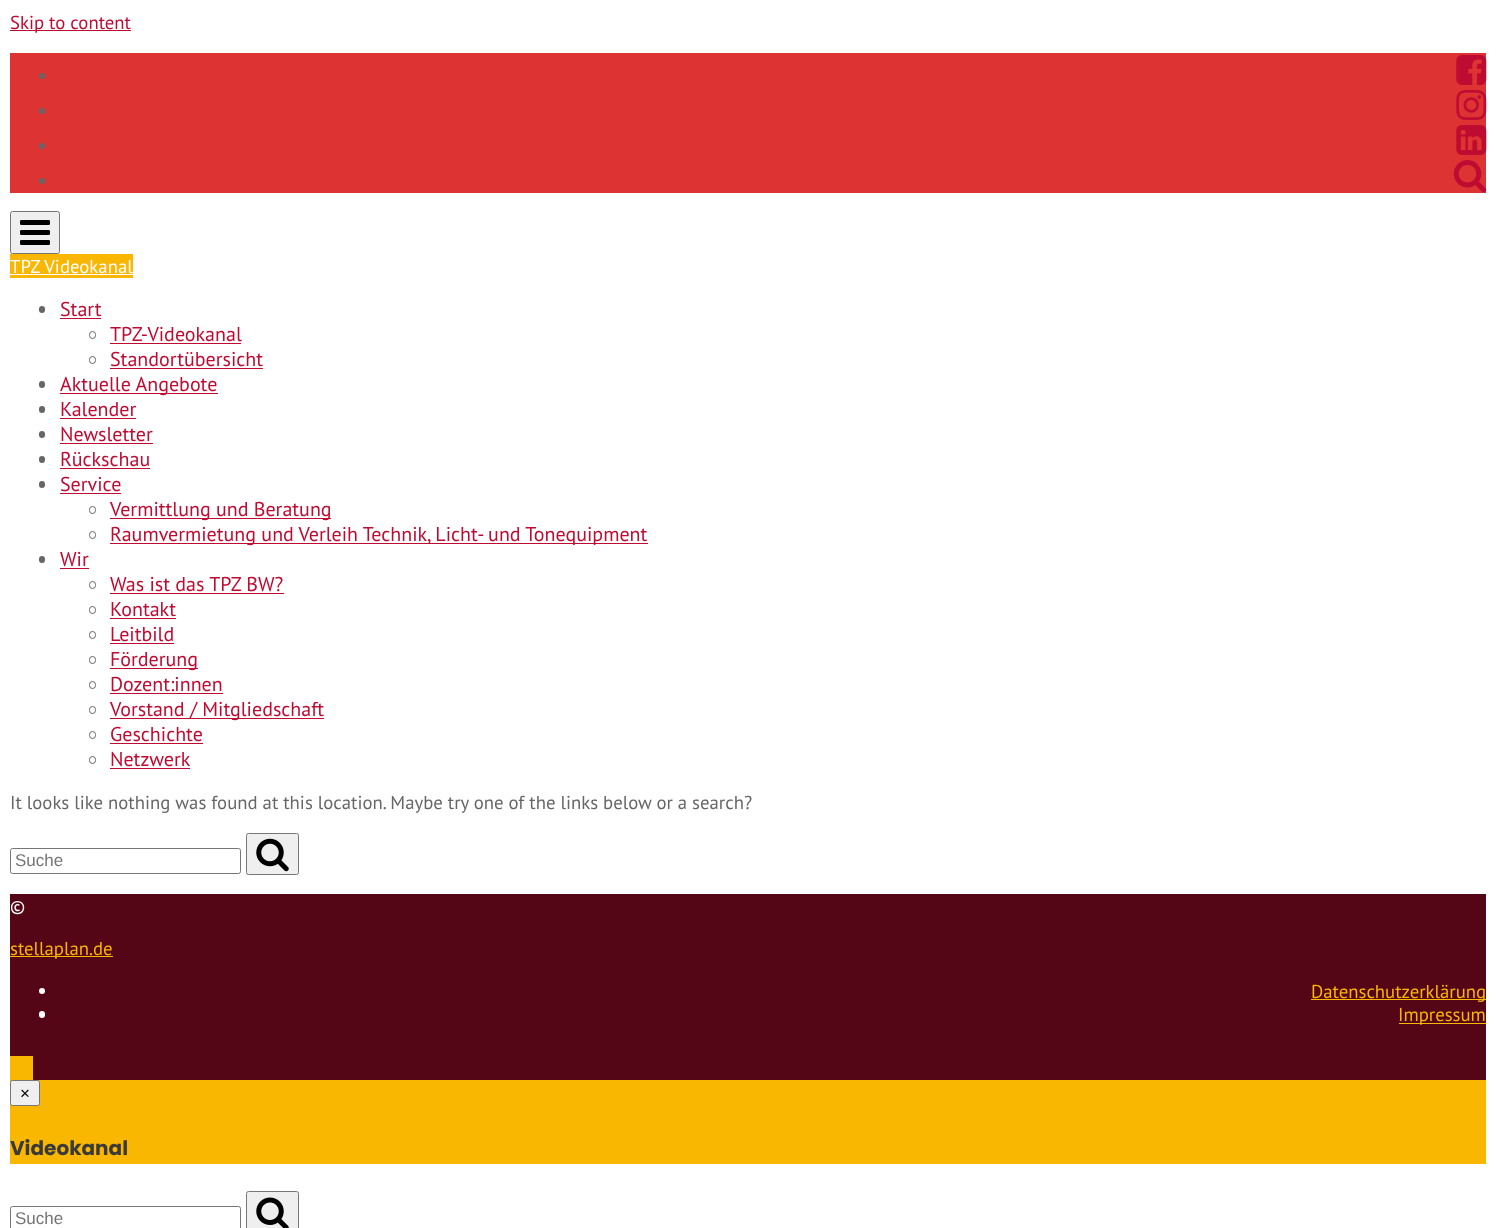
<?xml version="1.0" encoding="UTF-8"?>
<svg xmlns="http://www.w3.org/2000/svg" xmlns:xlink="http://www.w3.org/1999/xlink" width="1496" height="1228">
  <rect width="100%" height="100%" fill="#ffffff" />
  <rect x="10" y="30" width="121" height="1" fill="#be0b31" />
  <rect x="10" y="53" width="1476" height="140" fill="#dd3333" />
  <circle cx="42" cy="76" r="3" fill="#666666" />
  <image x="1456" y="55" width="31" height="30" xlink:href="image1.png" />
  <circle cx="42" cy="111" r="3" fill="#666666" />
  <image x="1456" y="90" width="31" height="30" xlink:href="image2.png" />
  <circle cx="42" cy="146" r="3" fill="#666666" />
  <image x="1456" y="125" width="31" height="30" xlink:href="image3.png" />
  <circle cx="42" cy="181" r="3" fill="#666666" />
  <image x="1453" y="160" width="34" height="33" xlink:href="image4.png" />
  <rect x="10.5" y="211.5" width="49" height="42" rx="2" fill="#efefef" stroke="#767676" />
  <image x="20" y="220" width="30" height="25" xlink:href="image5.png" />
  <rect x="10" y="254" width="123" height="24" fill="#fab702" />
  <rect x="10" y="274" width="123" height="1" fill="#ffffff" />
  <rect x="39" y="306" width="6" height="7" rx="3" fill="#666666" />
  <rect x="60" y="318" width="41" height="1" fill="#be0b31" />
  <rect x="89.5" y="331.5" width="6" height="7" rx="3" fill="none" stroke="#666666" />
  <rect x="110" y="343" width="131" height="1" fill="#be0b31" />
  <rect x="89.5" y="356.5" width="6" height="7" rx="3" fill="none" stroke="#666666" />
  <rect x="110" y="368" width="153" height="1" fill="#be0b31" />
  <rect x="39" y="381" width="6" height="7" rx="3" fill="#666666" />
  <rect x="60" y="393" width="158" height="1" fill="#be0b31" />
  <rect x="39" y="406" width="6" height="7" rx="3" fill="#666666" />
  <rect x="60" y="418" width="76" height="1" fill="#be0b31" />
  <rect x="39" y="431" width="6" height="7" rx="3" fill="#666666" />
  <rect x="60" y="443" width="93" height="1" fill="#be0b31" />
  <rect x="39" y="456" width="6" height="7" rx="3" fill="#666666" />
  <rect x="60" y="468" width="90" height="1" fill="#be0b31" />
  <rect x="39" y="481" width="6" height="7" rx="3" fill="#666666" />
  <rect x="60" y="493" width="61" height="1" fill="#be0b31" />
  <rect x="89.5" y="506.5" width="6" height="7" rx="3" fill="none" stroke="#666666" />
  <rect x="110" y="518" width="221" height="1" fill="#be0b31" />
  <rect x="89.5" y="531.5" width="6" height="7" rx="3" fill="none" stroke="#666666" />
  <rect x="110" y="543" width="538" height="1" fill="#be0b31" />
  <rect x="39" y="556" width="6" height="7" rx="3" fill="#666666" />
  <rect x="60" y="568" width="29" height="1" fill="#be0b31" />
  <rect x="89.5" y="581.5" width="6" height="7" rx="3" fill="none" stroke="#666666" />
  <rect x="110" y="593" width="174" height="1" fill="#be0b31" />
  <rect x="89.5" y="606.5" width="6" height="7" rx="3" fill="none" stroke="#666666" />
  <rect x="110" y="618" width="66" height="1" fill="#be0b31" />
  <rect x="89.5" y="631.5" width="6" height="7" rx="3" fill="none" stroke="#666666" />
  <rect x="110" y="643" width="64" height="1" fill="#be0b31" />
  <rect x="89.5" y="656.5" width="6" height="7" rx="3" fill="none" stroke="#666666" />
  <rect x="110" y="668" width="88" height="1" fill="#be0b31" />
  <rect x="89.5" y="681.5" width="6" height="7" rx="3" fill="none" stroke="#666666" />
  <rect x="110" y="693" width="113" height="1" fill="#be0b31" />
  <rect x="89.5" y="706.5" width="6" height="7" rx="3" fill="none" stroke="#666666" />
  <rect x="110" y="718" width="214" height="1" fill="#be0b31" />
  <rect x="89.5" y="731.5" width="6" height="7" rx="3" fill="none" stroke="#666666" />
  <rect x="110" y="743" width="93" height="1" fill="#be0b31" />
  <rect x="89.5" y="756.5" width="6" height="7" rx="3" fill="none" stroke="#666666" />
  <rect x="110" y="768" width="80" height="1" fill="#be0b31" />
  <rect x="10.5" y="848.5" width="230" height="25" rx="2" fill="none" stroke="#767676" />
  <rect x="246.5" y="833.5" width="52" height="41" rx="2" fill="#efefef" stroke="#767676" />
  <image x="256" y="838" width="33" height="34" xlink:href="image6.png" />
  <rect x="10" y="894" width="1476" height="186" fill="#540516" />
  <rect x="10" y="956" width="103" height="1" fill="#fab702" />
  <circle cx="42" cy="991" r="3" fill="#ffffff" />
  <rect x="1311" y="999" width="175" height="1" fill="#fab702" />
  <rect x="39" y="1011" width="6" height="7" rx="3" fill="#ffffff" />
  <rect x="1399" y="1023" width="87" height="1" fill="#fab702" />
  <rect x="10" y="1056" width="23" height="24" fill="#fab702" />
  <rect x="10" y="1080" width="1476" height="84" fill="#fab702" />
  <rect x="10.5" y="1080.5" width="29" height="25" rx="2" fill="#efefef" stroke="#767676" />
  <rect x="10.5" y="1206.5" width="230" height="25" rx="2" fill="none" stroke="#767676" />
  <rect x="246.5" y="1191.5" width="52" height="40" rx="2" fill="#efefef" stroke="#767676" />
  <image x="256" y="1197" width="33" height="31" xlink:href="image7.png" />
  <text x="10" y="29" style="font-family: PT Sans; font-size: 18.75px; fill: #be0b31">Skip to content</text>
  <text x="10" y="273" style="font-family: PT Sans; font-size: 18.75px; fill: #ffffff">TPZ Videokanal</text>
  <text x="60" y="316" style="font-family: PT Sans; font-size: 20px; fill: #be0b31">Start</text>
  <text x="110" y="341" style="font-family: PT Sans; font-size: 20px; fill: #be0b31">TPZ-Videokanal</text>
  <text x="110" y="366" style="font-family: PT Sans; font-size: 20px; fill: #be0b31">Standortübersicht</text>
  <text x="60" y="391" style="font-family: PT Sans; font-size: 20px; fill: #be0b31">Aktuelle Angebote</text>
  <text x="60" y="416" style="font-family: PT Sans; font-size: 20px; fill: #be0b31">Kalender</text>
  <text x="60" y="441" style="font-family: PT Sans; font-size: 20px; fill: #be0b31">Newsletter</text>
  <text x="60" y="466" style="font-family: PT Sans; font-size: 20px; fill: #be0b31">Rückschau</text>
  <text x="60" y="491" style="font-family: PT Sans; font-size: 20px; fill: #be0b31">Service</text>
  <text x="110" y="516" style="font-family: PT Sans; font-size: 20px; fill: #be0b31">Vermittlung und Beratung</text>
  <text x="110" y="541" style="font-family: PT Sans; font-size: 20px; fill: #be0b31">Raumvermietung und Verleih Technik, Licht- und Tonequipment</text>
  <text x="60" y="566" style="font-family: PT Sans; font-size: 20px; fill: #be0b31">Wir</text>
  <text x="110" y="591" style="font-family: PT Sans; font-size: 20px; fill: #be0b31">Was ist das TPZ BW?</text>
  <text x="110" y="616" style="font-family: PT Sans; font-size: 20px; fill: #be0b31">Kontakt</text>
  <text x="110" y="641" style="font-family: PT Sans; font-size: 20px; fill: #be0b31">Leitbild</text>
  <text x="110" y="666" style="font-family: PT Sans; font-size: 20px; fill: #be0b31">Förderung</text>
  <text x="110" y="691" style="font-family: PT Sans; font-size: 20px; fill: #be0b31">Dozent:innen</text>
  <text x="110" y="716" style="font-family: PT Sans; font-size: 20px; fill: #be0b31">Vorstand / Mitgliedschaft</text>
  <text x="110" y="741" style="font-family: PT Sans; font-size: 20px; fill: #be0b31">Geschichte</text>
  <text x="110" y="766" style="font-family: PT Sans; font-size: 20px; fill: #be0b31">Netzwerk</text>
  <text x="10" y="809" style="font-family: PT Sans; font-size: 18.75px; fill: #666666">It looks like nothing was found at this location. Maybe try one of the links below or a search?</text>
  <text x="15" y="866" style="font-family: Liberation Sans; font-size: 17px; fill: #757575">Suche</text>
  <text x="10" y="913" style="font-family: PT Sans; font-size: 18.75px; fill: #ffffff">©</text>
  <text x="10" y="955" style="font-family: PT Sans; font-size: 18.75px; fill: #fab702">stellaplan.de</text>
  <text x="1311" y="998" style="font-family: PT Sans; font-size: 18.75px; fill: #fab702">Datenschutzerklärung</text>
  <text x="1398" y="1021" style="font-family: PT Sans; font-size: 18.75px; fill: #fab702">Impressum</text>
  <text x="20" y="1099" style="font-family: Liberation Sans; font-size: 17px; fill: #000000">×</text>
  <text x="10" y="1155" style="font-family: Poppins; font-size: 20px; font-weight: bold; fill: #3a3a3a">Videokanal</text>
  <text x="15" y="1224" style="font-family: Liberation Sans; font-size: 17px; fill: #757575">Suche</text>
</svg>
